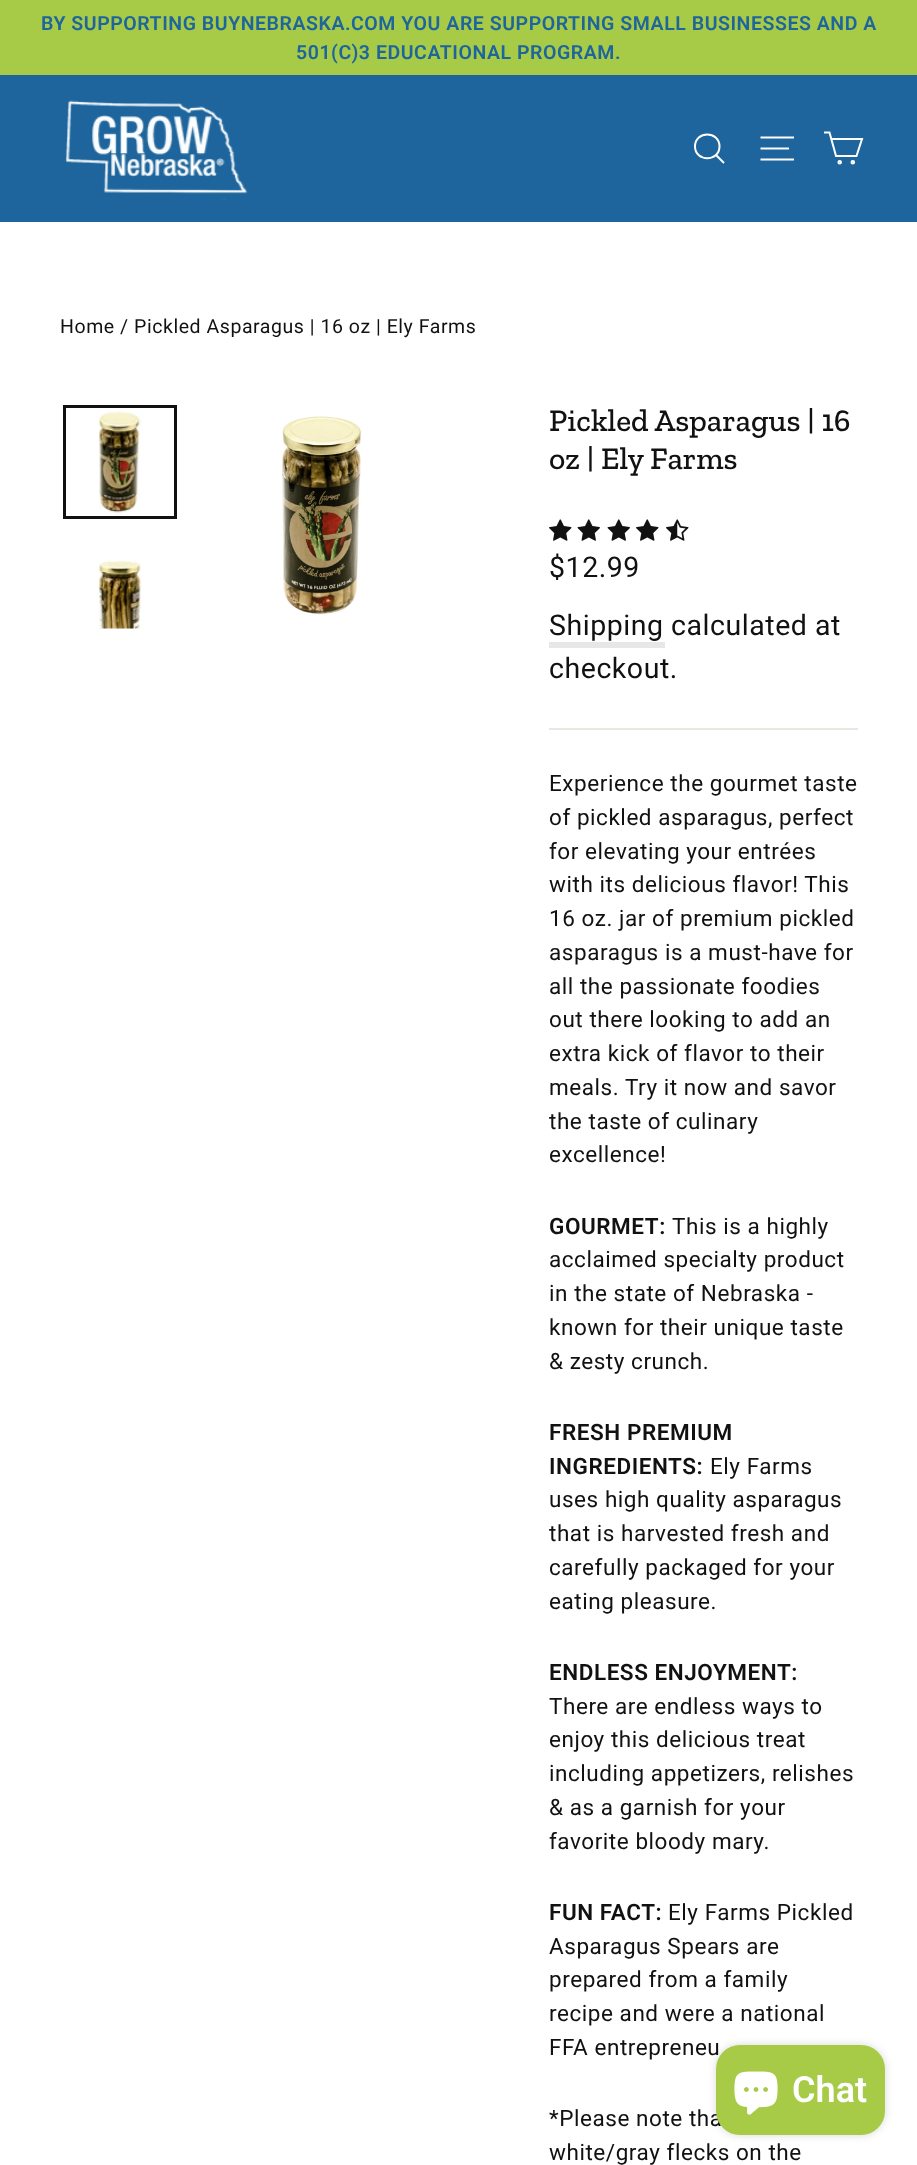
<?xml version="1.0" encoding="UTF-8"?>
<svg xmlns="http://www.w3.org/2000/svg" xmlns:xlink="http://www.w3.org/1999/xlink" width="917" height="2165">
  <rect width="100%" height="100%" fill="#ffffff" />
  <rect width="917" height="75" fill="#a7ca47" />
  <rect y="75" width="917" height="147" fill="#1d659c" />
  <image x="65" y="100" width="183" height="100" xlink:href="image1.png" />
  <path d="M 719.5 146.5 c 0 15.5 -24.5 15.5 -24.5 0 c 0 -16 24.5 -16 24.5 0 z m 4.5 16.5 l -8 -8" fill="none" stroke="#ffffff" stroke-width="2" />
  <path d="M 760.5 137.5 h 33.5 m -33.5 11 h 28.5 m -28.5 11 h 33.5" fill="none" stroke="#ffffff" stroke-width="2" />
  <path d="M 831 139 h 31 l -5.5 17 h -20.5 l -6.5 -23.5 h -5.5" fill="none" stroke="#ffffff" stroke-width="2" />
  <circle cx="839.7" cy="162.3" r="1.3" fill="none" stroke="#ffffff" stroke-width="2" />
  <circle cx="852.8" cy="162.3" r="1.3" fill="none" stroke="#ffffff" stroke-width="2" />
  <image x="98" y="408" width="45" height="107" xlink:href="image2.png" />
  <rect x="64.5" y="406.5" width="111" height="111" fill="none" stroke="#111111" stroke-width="3" />
  <image x="98" y="559" width="44" height="70" xlink:href="image3.png" />
  <image x="282" y="416" width="80" height="199" xlink:href="image4.png" />
  <image x="549" y="519" width="23" height="22" xlink:href="image5.png" />
  <image x="577" y="519" width="23" height="22" xlink:href="image6.png" />
  <image x="607" y="519" width="23" height="22" xlink:href="image6.png" />
  <image x="636" y="519" width="23" height="22" xlink:href="image5.png" />
  <image x="666" y="519" width="23" height="22" xlink:href="image7.png" />
  <rect x="549" y="642" width="116" height="6" fill="#e7e7e7" />
  <rect x="549" y="728" width="309" height="2" fill="#e8e8e1" />
  <rect x="716" y="2045" width="169" height="90" rx="24" fill="#000000" fill-opacity="0.15" filter="blur(4px)" />
  <text x="41" y="30" style="font-family: Roboto; font-size: 19.5px; font-weight: 600; letter-spacing: 0.55px; fill: #1d659c">BY SUPPORTING BUYNEBRASKA.COM YOU ARE SUPPORTING SMALL BUSINESSES AND A</text>
  <text x="296" y="59" style="font-family: Roboto; font-size: 19.5px; font-weight: 600; letter-spacing: 0.55px; fill: #1d659c">501(C)3 EDUCATIONAL PROGRAM.</text>
  <text x="60" y="333" style="font-family: Roboto; font-size: 19.5px; letter-spacing: 0.55px; fill: #111111">Home / Pickled Asparagus | 16 oz | Ely Farms</text>
  <text x="549" y="431" style="font-family: Zilla Slab; font-size: 31.5px; font-weight: 500; fill: #111111">Pickled Asparagus | 16</text>
  <text x="549" y="469" style="font-family: Zilla Slab; font-size: 31.5px; font-weight: 500; fill: #111111">oz | Ely Farms</text>
  <text x="549" y="577" style="font-family: Roboto; font-size: 28.5px; letter-spacing: 0.55px; fill: #111111">$12.99</text>
  <text x="549" y="635" style="font-family: Roboto; font-size: 28.5px; letter-spacing: 0.55px; fill: #111111">Shipping</text>
  <text x="671" y="635" style="font-family: Roboto; font-size: 28.5px; letter-spacing: 0.55px; fill: #111111">calculated at</text>
  <text x="549" y="678" style="font-family: Roboto; font-size: 28.5px; letter-spacing: 0.55px; fill: #111111">checkout.</text>
  <text x="549" y="791" style="font-family: Roboto; font-size: 22.5px; letter-spacing: 0.55px; fill: #111111">Experience the gourmet taste</text>
  <text x="549" y="825" style="font-family: Roboto; font-size: 22.5px; letter-spacing: 0.55px; fill: #111111">of pickled asparagus, perfect</text>
  <text x="549" y="859" style="font-family: Roboto; font-size: 22.5px; letter-spacing: 0.55px; fill: #111111">for elevating your entrées</text>
  <text x="549" y="892" style="font-family: Roboto; font-size: 22.5px; letter-spacing: 0.55px; fill: #111111">with its delicious flavor! This</text>
  <text x="549" y="926" style="font-family: Roboto; font-size: 22.5px; letter-spacing: 0.55px; fill: #111111">16 oz. jar of premium pickled</text>
  <text x="549" y="960" style="font-family: Roboto; font-size: 22.5px; letter-spacing: 0.55px; fill: #111111">asparagus is a must-have for</text>
  <text x="549" y="994" style="font-family: Roboto; font-size: 22.5px; letter-spacing: 0.55px; fill: #111111">all the passionate foodies</text>
  <text x="549" y="1027" style="font-family: Roboto; font-size: 22.5px; letter-spacing: 0.55px; fill: #111111">out there looking to add an</text>
  <text x="549" y="1061" style="font-family: Roboto; font-size: 22.5px; letter-spacing: 0.55px; fill: #111111">extra kick of flavor to their</text>
  <text x="549" y="1095" style="font-family: Roboto; font-size: 22.5px; letter-spacing: 0.55px; fill: #111111">meals. Try it now and savor</text>
  <text x="549" y="1129" style="font-family: Roboto; font-size: 22.5px; letter-spacing: 0.55px; fill: #111111">the taste of culinary</text>
  <text x="549" y="1162" style="font-family: Roboto; font-size: 22.5px; letter-spacing: 0.55px; fill: #111111">excellence!</text>
  <text x="549" y="1234" style="font-family: Roboto; font-size: 22.5px; font-weight: 600; letter-spacing: 0.55px; fill: #111111">GOURMET:</text>
  <text x="672" y="1234" style="font-family: Roboto; font-size: 22.5px; letter-spacing: 0.55px; fill: #111111">This is a highly</text>
  <text x="549" y="1267" style="font-family: Roboto; font-size: 22.5px; letter-spacing: 0.55px; fill: #111111">acclaimed specialty product</text>
  <text x="549" y="1301" style="font-family: Roboto; font-size: 22.5px; letter-spacing: 0.55px; fill: #111111">in the state of Nebraska -</text>
  <text x="549" y="1335" style="font-family: Roboto; font-size: 22.5px; letter-spacing: 0.55px; fill: #111111">known for their unique taste</text>
  <text x="549" y="1369" style="font-family: Roboto; font-size: 22.5px; letter-spacing: 0.55px; fill: #111111">&amp; zesty crunch.</text>
  <text x="549" y="1440" style="font-family: Roboto; font-size: 22.5px; font-weight: 600; letter-spacing: 0.55px; fill: #111111">FRESH PREMIUM</text>
  <text x="549" y="1474" style="font-family: Roboto; font-size: 22.5px; font-weight: 600; letter-spacing: 0.55px; fill: #111111">INGREDIENTS:</text>
  <text x="710" y="1474" style="font-family: Roboto; font-size: 22.5px; letter-spacing: 0.55px; fill: #111111">Ely Farms</text>
  <text x="549" y="1507" style="font-family: Roboto; font-size: 22.5px; letter-spacing: 0.55px; fill: #111111">uses high quality asparagus</text>
  <text x="549" y="1541" style="font-family: Roboto; font-size: 22.5px; letter-spacing: 0.55px; fill: #111111">that is harvested fresh and</text>
  <text x="549" y="1575" style="font-family: Roboto; font-size: 22.5px; letter-spacing: 0.55px; fill: #111111">carefully packaged for your</text>
  <text x="549" y="1609" style="font-family: Roboto; font-size: 22.5px; letter-spacing: 0.55px; fill: #111111">eating pleasure.</text>
  <text x="549" y="1680" style="font-family: Roboto; font-size: 22.5px; font-weight: 600; letter-spacing: 0.55px; fill: #111111">ENDLESS ENJOYMENT:</text>
  <text x="549" y="1714" style="font-family: Roboto; font-size: 22.5px; letter-spacing: 0.55px; fill: #111111">There are endless ways to</text>
  <text x="549" y="1747" style="font-family: Roboto; font-size: 22.5px; letter-spacing: 0.55px; fill: #111111">enjoy this delicious treat</text>
  <text x="549" y="1781" style="font-family: Roboto; font-size: 22.5px; letter-spacing: 0.55px; fill: #111111">including appetizers, relishes</text>
  <text x="549" y="1815" style="font-family: Roboto; font-size: 22.5px; letter-spacing: 0.55px; fill: #111111">&amp; as a garnish for your</text>
  <text x="549" y="1849" style="font-family: Roboto; font-size: 22.5px; letter-spacing: 0.55px; fill: #111111">favorite bloody mary.</text>
  <text x="549" y="1920" style="font-family: Roboto; font-size: 22.5px; font-weight: 600; letter-spacing: 0.55px; fill: #111111">FUN FACT:</text>
  <text x="668" y="1920" style="font-family: Roboto; font-size: 22.5px; letter-spacing: 0.55px; fill: #111111">Ely Farms Pickled</text>
  <text x="549" y="1954" style="font-family: Roboto; font-size: 22.5px; letter-spacing: 0.55px; fill: #111111">Asparagus Spears are</text>
  <text x="549" y="1987" style="font-family: Roboto; font-size: 22.5px; letter-spacing: 0.55px; fill: #111111">prepared from a family</text>
  <text x="549" y="2021" style="font-family: Roboto; font-size: 22.5px; letter-spacing: 0.55px; fill: #111111">recipe and were a national</text>
  <text x="549" y="2055" style="font-family: Roboto; font-size: 22.5px; letter-spacing: 0.55px; fill: #111111">FFA entrepreneu</text>
  <text x="549" y="2126" style="font-family: Roboto; font-size: 22.5px; letter-spacing: 0.55px; fill: #111111">*Please note tha</text>
  <text x="549" y="2160" style="font-family: Roboto; font-size: 22.5px; letter-spacing: 0.55px; fill: #111111">white/gray flecks on the</text>
  <rect x="716" y="2045" width="169" height="90" rx="24" fill="#a7ca47" />
  <image x="734" y="2071" width="44" height="44" xlink:href="image8.png" />
  <text x="792" y="2102" style="font-family: Roboto; font-size: 36px; font-weight: 600; fill: #ffffff">Chat</text>
</svg>
